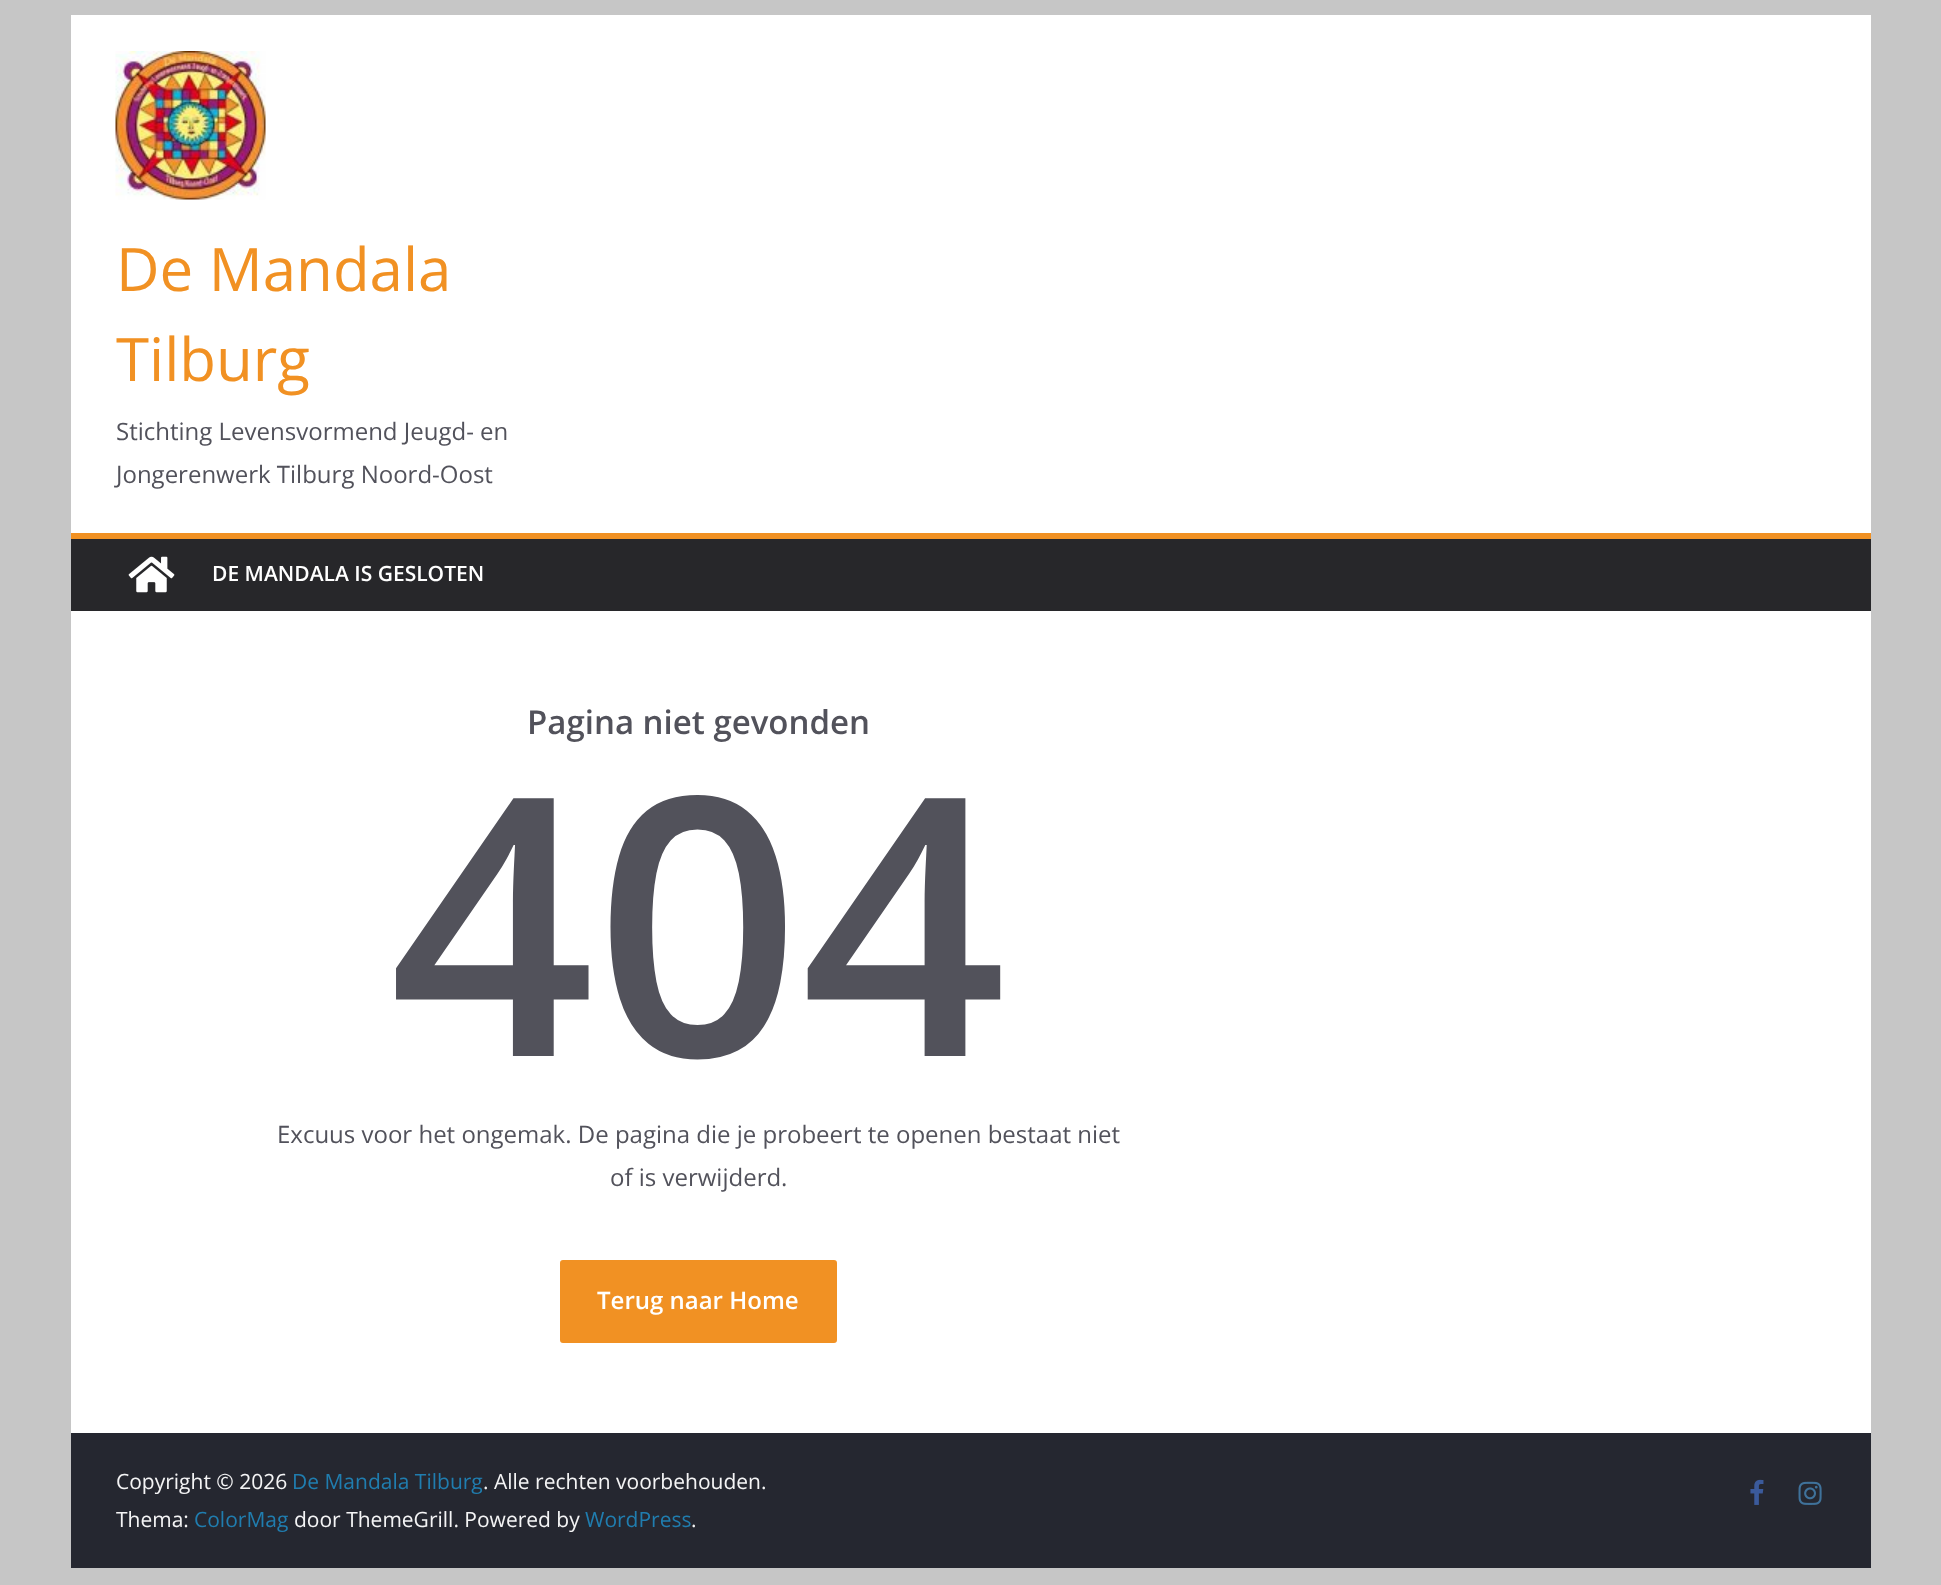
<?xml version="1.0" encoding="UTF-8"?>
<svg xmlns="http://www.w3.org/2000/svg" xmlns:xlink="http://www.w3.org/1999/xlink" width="1941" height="1585">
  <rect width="100%" height="100%" fill="#c6c6c6" />
  <rect x="71" y="15" width="1800" height="518" fill="#ffffff" />
  <image x="115" y="51" width="151" height="149" xlink:href="image1.png" />
  <rect x="71" y="539" width="1800" height="72" fill="#27272a" />
  <rect x="71" y="533" width="1800" height="6" fill="#f19123" />
  <image x="128" y="556" width="47" height="37" xlink:href="image2.png" />
  <rect x="71" y="611" width="1800" height="822" fill="#ffffff" />
  <rect x="561" y="1261" width="275" height="81" rx="2" fill="#f19123" stroke="#f19123" stroke-width="2" />
  <rect x="71" y="1433" width="1800" height="135" fill="#252730" />
  <image x="1750" y="1479" width="14" height="26" xlink:href="image3.png" />
  <image x="1798" y="1481" width="24" height="24" xlink:href="image4.png" />
  <text x="116" y="291" style="font-family: Open Sans; font-size: 60px; fill: #f19123">De Mandala</text>
  <text x="116" y="381" style="font-family: Open Sans; font-size: 60px; fill: #f19123">Tilburg</text>
  <text x="116" y="440" style="font-family: Open Sans; font-size: 24px; fill: #52525b">Stichting Levensvormend Jeugd- en</text>
  <text x="116" y="483" style="font-family: Open Sans; font-size: 24px; fill: #52525b">Jongerenwerk Tilburg Noord-Oost</text>
  <text x="212" y="581" style="font-family: Open Sans; font-size: 21px; font-weight: 600; fill: #ffffff">DE MANDALA IS GESLOTEN</text>
  <text x="527" y="734" style="font-family: Open Sans; font-size: 33px; font-weight: 600; fill: #52525b">Pagina niet gevonden</text>
  <text x="389" y="1056" style="font-family: Open Sans; font-size: 360px; font-weight: 600; fill: #52525b">404</text>
  <text x="277" y="1143" style="font-family: Open Sans; font-size: 24px; fill: #52525b">Excuus voor het ongemak. De pagina die je probeert te openen bestaat niet</text>
  <text x="610" y="1186" style="font-family: Open Sans; font-size: 24px; fill: #52525b">of is verwijderd.</text>
  <text x="597" y="1309" style="font-family: Open Sans; font-size: 24px; font-weight: 600; fill: #ffffff">Terug naar Home</text>
  <text x="116" y="1489" style="font-family: Open Sans; font-size: 21px; fill: #f4f4f5">Copyright © 2026</text>
  <text x="292" y="1489" style="font-family: Open Sans; font-size: 21px; fill: #207daf">De Mandala Tilburg</text>
  <text x="483" y="1489" style="font-family: Open Sans; font-size: 21px; fill: #f4f4f5">. Alle rechten voorbehouden.</text>
  <text x="116" y="1527" style="font-family: Open Sans; font-size: 21px; fill: #f4f4f5">Thema:</text>
  <text x="194" y="1527" style="font-family: Open Sans; font-size: 21px; fill: #207daf">ColorMag</text>
  <text x="294" y="1527" style="font-family: Open Sans; font-size: 21px; fill: #f4f4f5">door ThemeGrill. Powered by</text>
  <text x="585" y="1527" style="font-family: Open Sans; font-size: 21px; fill: #207daf">WordPress</text>
  <text x="691" y="1527" style="font-family: Open Sans; font-size: 21px; fill: #f4f4f5">.</text>
</svg>
